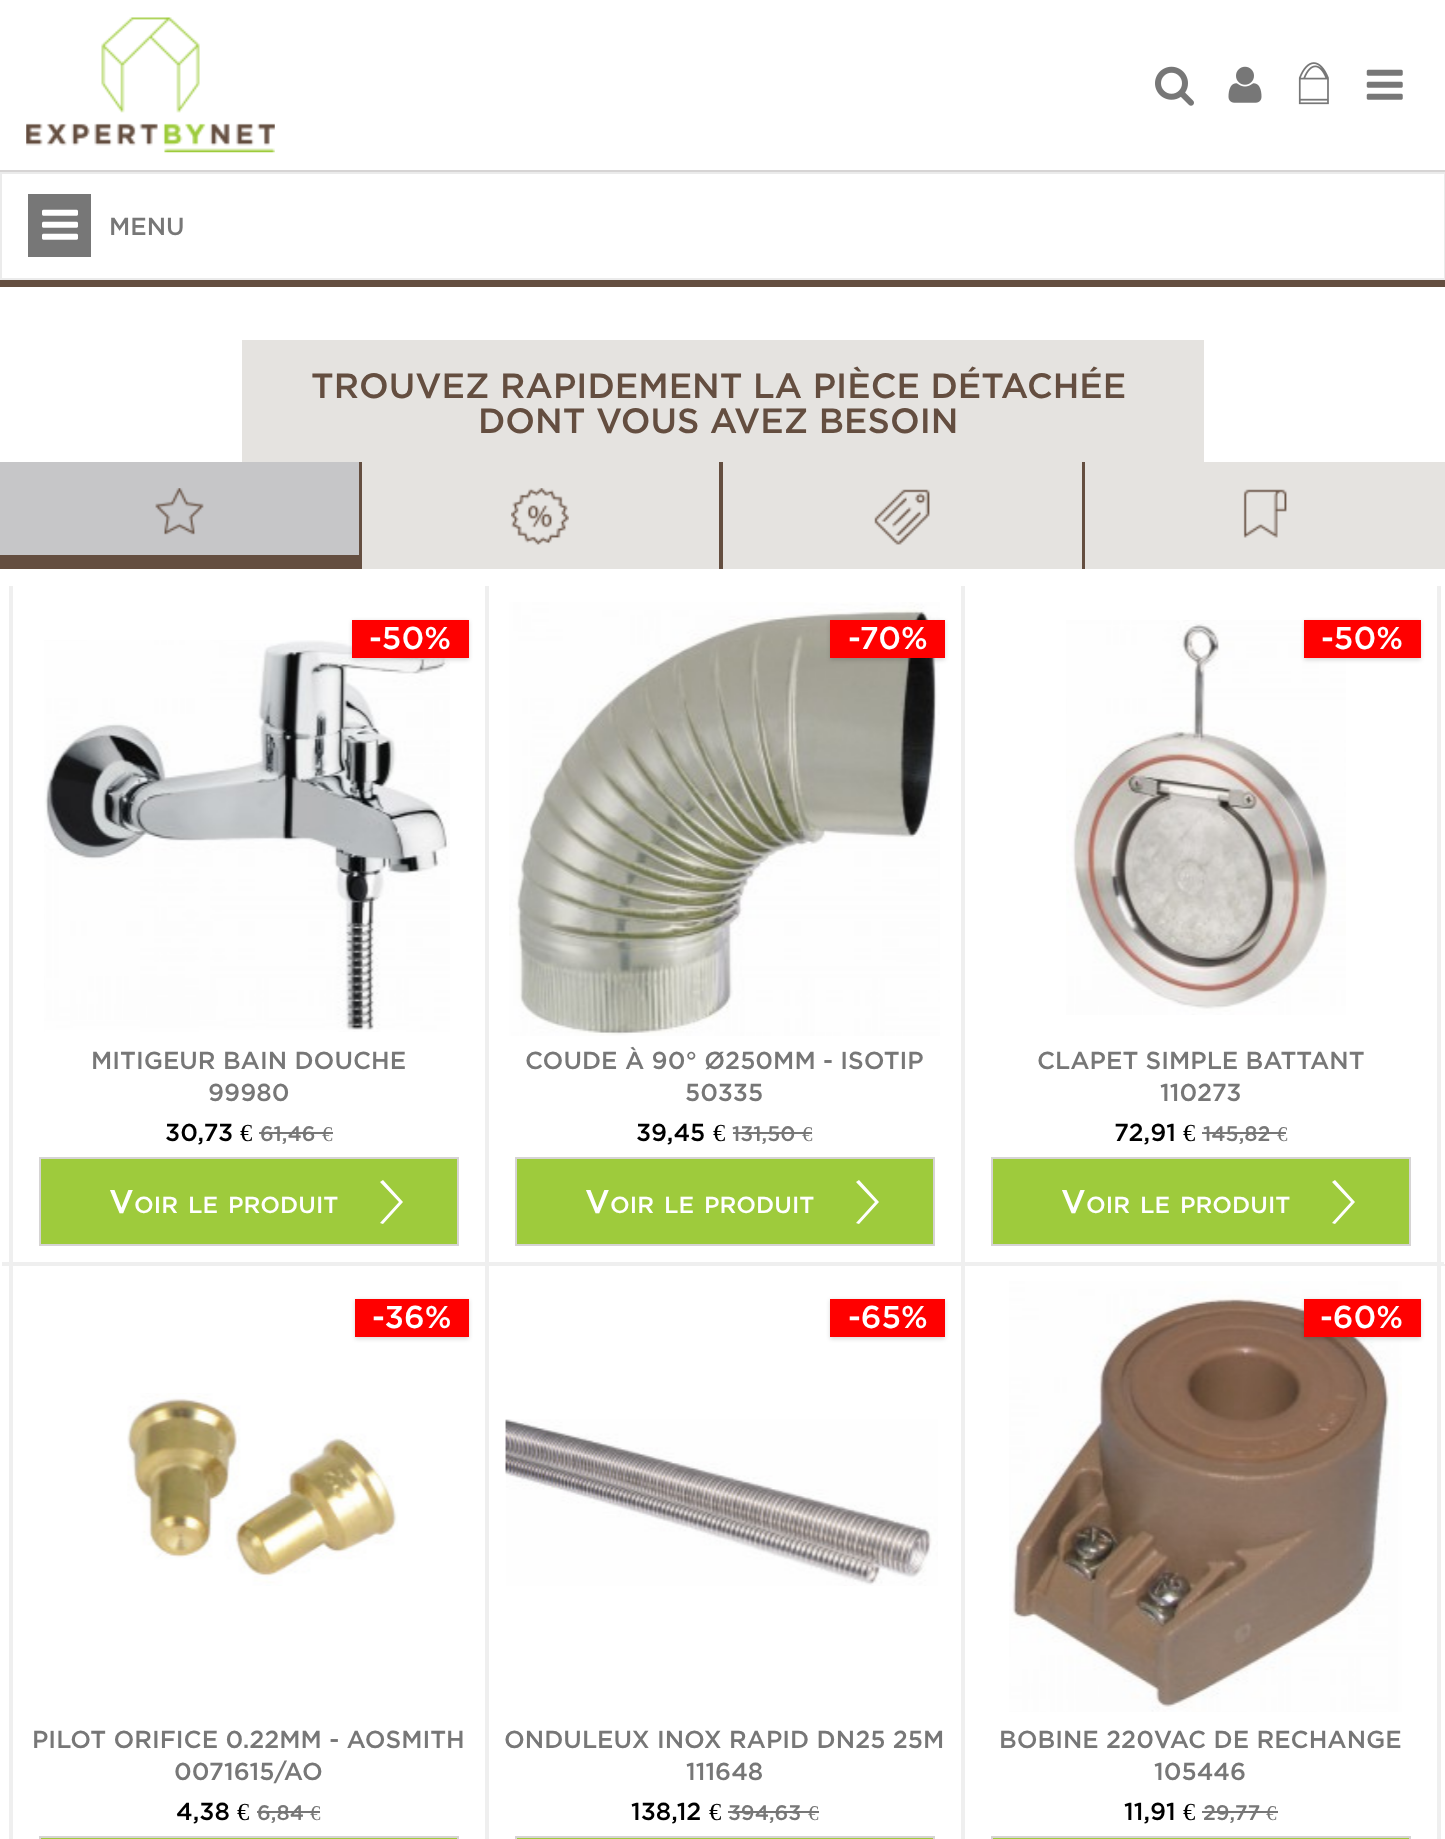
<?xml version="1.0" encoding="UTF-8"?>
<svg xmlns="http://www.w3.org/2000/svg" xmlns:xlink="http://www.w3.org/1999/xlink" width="1445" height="1839">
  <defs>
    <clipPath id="clip1"><rect x="2" y="567" width="1442" height="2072" /></clipPath>
  </defs>
  <rect width="100%" height="100%" fill="#ffffff" />
  <rect y="170" width="1445" height="2" fill="#d6d4d4" />
  <image x="26" y="17" width="249" height="136" xlink:href="image1.png" />
  <image x="1155" y="66" width="39" height="40" xlink:href="image2.png" />
  <image x="1228" y="66" width="34" height="37" xlink:href="image3.png" />
  <image x="1298" y="62" width="31" height="43" xlink:href="image4.png" />
  <image x="1366" y="69" width="37" height="31" xlink:href="image5.png" />
  <rect y="280" width="1445" height="7" fill="#644e40" />
  <rect x="1" y="173" width="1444" height="106" fill="none" stroke="#ebebeb" stroke-width="2" />
  <rect x="28" y="194" width="63" height="63" fill="#777777" />
  <image x="42" y="209" width="36" height="31" xlink:href="image6.png" />
  <rect x="242" y="340" width="962" height="122" fill="#e5e3e0" />
  <rect x="359" y="462" width="3" height="107" fill="#644e40" />
  <rect y="462" width="359" height="93" fill="#c6c6c8" />
  <rect y="555" width="359" height="14" fill="#644e40" />
  <image x="155" y="488" width="49" height="47" xlink:href="image7.png" />
  <rect x="719" y="462" width="4" height="107" fill="#644e40" />
  <rect x="362" y="462" width="357" height="107" fill="#e5e3e0" />
  <image x="511" y="488" width="58" height="57" xlink:href="image8.png" />
  <rect x="1082" y="462" width="3" height="107" fill="#644e40" />
  <rect x="723" y="462" width="359" height="107" fill="#e5e3e0" />
  <image x="874" y="489" width="56" height="56" xlink:href="image9.png" />
  <rect x="1085" y="462" width="360" height="107" fill="#e5e3e0" />
  <image x="1243" y="489" width="44" height="49" xlink:href="image10.png" />
  <rect x="9" y="586" width="2" height="678" fill="#efefef" />
  <rect x="2" y="1262" width="9" height="2" fill="#efefef" />
  <g clip-path="url(#clip1)">
    <rect x="-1" y="1265" width="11" height="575" fill="none" stroke="#efefef" stroke-width="2" />
  </g>
  <rect x="485" y="586" width="2" height="678" fill="#efefef" />
  <rect x="11" y="1262" width="476" height="2" fill="#efefef" />
  <rect x="11" y="586" width="2" height="678" fill="#efefef" />
  <image x="44" y="640" width="406" height="392" xlink:href="image11.png" />
  <rect x="352" y="621" width="117" height="39" fill="#000000" fill-opacity="0.15" filter="blur(2px)" />
  <rect x="352" y="620" width="117" height="38" fill="#ff0000" />
  <rect x="259" y="1132" width="74" height="2" fill="#777777" />
  <rect x="40" y="1158" width="418" height="87" fill="#9ecb3c" stroke="#d6d4d4" stroke-width="2" />
  <path d="M 399 1202 l -19 -20 l 3 -2 l 20 22 z m -16 22 l -3 -1 l 19 -21 h 4 z" fill="#ffffff" />
  <rect x="12" y="1265" width="474" height="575" fill="none" stroke="#efefef" stroke-width="2" />
  <rect x="355" y="1300" width="114" height="39" fill="#000000" fill-opacity="0.15" filter="blur(2px)" />
  <rect x="355" y="1299" width="114" height="38" fill="#ff0000" />
  <image x="127" y="1393" width="271" height="193" xlink:href="image12.png" />
  <rect x="257" y="1811" width="63" height="2" fill="#777777" />
  <rect x="40" y="1837" width="418" height="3" fill="#9ecb3c" stroke="#d6d4d4" stroke-width="2" />
  <rect x="961" y="586" width="2" height="678" fill="#efefef" />
  <rect x="487" y="1262" width="476" height="2" fill="#efefef" />
  <rect x="487" y="586" width="2" height="678" fill="#efefef" />
  <image x="509" y="602" width="431" height="434" xlink:href="image13.png" />
  <rect x="830" y="621" width="115" height="39" fill="#000000" fill-opacity="0.15" filter="blur(2px)" />
  <rect x="830" y="620" width="115" height="38" fill="#ff0000" />
  <rect x="733" y="1132" width="79" height="2" fill="#777777" />
  <rect x="516" y="1158" width="418" height="87" fill="#9ecb3c" stroke="#d6d4d4" stroke-width="2" />
  <path d="M 875 1202 l -19 -20 l 3 -2 l 20 22 z m -16 22 l -3 -1 l 19 -21 h 4 z" fill="#ffffff" />
  <rect x="488" y="1265" width="474" height="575" fill="none" stroke="#efefef" stroke-width="2" />
  <rect x="830" y="1300" width="115" height="39" fill="#000000" fill-opacity="0.15" filter="blur(2px)" />
  <rect x="830" y="1299" width="115" height="38" fill="#ff0000" />
  <image x="505" y="1419" width="433" height="167" xlink:href="image14.png" />
  <image x="505" y="1419" width="1" height="55" xlink:href="image15.png" />
  <rect x="728" y="1811" width="91" height="2" fill="#777777" />
  <rect x="516" y="1837" width="418" height="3" fill="#9ecb3c" stroke="#d6d4d4" stroke-width="2" />
  <rect x="1437" y="586" width="2" height="678" fill="#efefef" />
  <rect x="963" y="1262" width="481" height="2" fill="#efefef" />
  <rect x="963" y="586" width="2" height="678" fill="#efefef" />
  <image x="1066" y="620" width="280" height="395" xlink:href="image16.png" />
  <rect x="1304" y="621" width="117" height="39" fill="#000000" fill-opacity="0.15" filter="blur(2px)" />
  <rect x="1304" y="620" width="117" height="38" fill="#ff0000" />
  <rect x="1202" y="1132" width="84" height="2" fill="#777777" />
  <rect x="992" y="1158" width="418" height="87" fill="#9ecb3c" stroke="#d6d4d4" stroke-width="2" />
  <path d="M 1351 1202 l -19 -20 l 3 -2 l 20 22 z m -16 22 l -3 -1 l 19 -21 h 4 z" fill="#ffffff" />
  <rect x="964" y="1265" width="474" height="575" fill="none" stroke="#efefef" stroke-width="2" />
  <image x="1009" y="1281" width="393" height="431" xlink:href="image17.png" />
  <rect x="1304" y="1300" width="117" height="39" fill="#000000" fill-opacity="0.15" filter="blur(2px)" />
  <rect x="1304" y="1299" width="117" height="38" fill="#ff0000" />
  <rect x="1202" y="1811" width="76" height="2" fill="#777777" />
  <rect x="992" y="1837" width="418" height="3" fill="#9ecb3c" stroke="#d6d4d4" stroke-width="2" />
  <rect x="1439" y="586" width="2" height="678" fill="#efefef" />
  <rect x="1440" y="1265" width="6" height="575" fill="none" stroke="#efefef" stroke-width="2" />
  <text x="109" y="235" style="font-family: Gotham; font-size: 24.5px; font-weight: 500; fill: #777777">MENU</text>
  <text x="311" y="398" style="font-family: Gotham; font-size: 35px; font-weight: 500; fill: #644e40">TROUVEZ RAPIDEMENT LA PIÈCE DÉTACHÉE</text>
  <text x="478" y="433" style="font-family: Gotham; font-size: 35px; font-weight: 500; fill: #644e40">DONT VOUS AVEZ BESOIN</text>
  <text x="369" y="649" style="font-family: Gotham; font-size: 31.5px; font-weight: 500; fill: #ffffff">-50%</text>
  <text x="91" y="1069" style="font-family: Gotham; font-size: 24.5px; font-weight: 500; fill: #777777">MITIGEUR BAIN DOUCHE</text>
  <text x="208" y="1101" style="font-family: Gotham; font-size: 24.5px; font-weight: 500; fill: #777777">99980</text>
  <text x="165" y="1141" style="font-family: Gotham; font-size: 24.5px; font-weight: 500; fill: #000000">30,73</text>
  <text x="240" y="1141" style="font-family: Liberation Serif; font-size: 24.5px; fill: #000000">€</text>
  <text x="260" y="1141" style="font-family: Gotham; font-size: 21px; font-weight: 500; fill: #777777">61,46</text>
  <text x="322" y="1141" style="font-family: Liberation Serif; font-size: 21px; fill: #777777">€</text>
  <text x="109" y="1213" style="font-family: Gotham; font-size: 33px; font-weight: 500; fill: #ffffff">V</text>
  <text x="134" y="1213" style="font-family: Gotham; font-size: 23.25px; font-weight: 500; fill: #ffffff">OIR</text>
  <text x="188" y="1213" style="font-family: Gotham; font-size: 23.25px; font-weight: 500; fill: #ffffff">LE</text>
  <text x="228" y="1213" style="font-family: Gotham; font-size: 23.25px; font-weight: 500; fill: #ffffff">PRODUIT</text>
  <text x="372" y="1328" style="font-family: Gotham; font-size: 31.5px; font-weight: 500; fill: #ffffff">-36%</text>
  <text x="32" y="1748" style="font-family: Gotham; font-size: 24.5px; font-weight: 500; fill: #777777">PILOT ORIFICE 0.22MM - AOSMITH</text>
  <text x="174" y="1780" style="font-family: Gotham; font-size: 24.5px; font-weight: 500; fill: #777777">0071615/AO</text>
  <text x="176" y="1820" style="font-family: Gotham; font-size: 24.5px; font-weight: 500; fill: #000000">4,38</text>
  <text x="237" y="1820" style="font-family: Liberation Serif; font-size: 24.5px; fill: #000000">€</text>
  <text x="257" y="1820" style="font-family: Gotham; font-size: 21px; font-weight: 500; fill: #777777">6,84</text>
  <text x="310" y="1820" style="font-family: Liberation Serif; font-size: 21px; fill: #777777">€</text>
  <text x="848" y="649" style="font-family: Gotham; font-size: 31.5px; font-weight: 500; fill: #ffffff">-70%</text>
  <text x="525" y="1069" style="font-family: Gotham; font-size: 24.5px; font-weight: 500; fill: #777777">COUDE À 90° Ø250MM - ISOTIP</text>
  <text x="685" y="1101" style="font-family: Gotham; font-size: 24.5px; font-weight: 500; fill: #777777">50335</text>
  <text x="636" y="1141" style="font-family: Gotham; font-size: 24.5px; font-weight: 500; fill: #000000">39,45</text>
  <text x="713" y="1141" style="font-family: Liberation Serif; font-size: 24.5px; fill: #000000">€</text>
  <text x="732" y="1141" style="font-family: Gotham; font-size: 21px; font-weight: 500; fill: #777777">131,50</text>
  <text x="802" y="1141" style="font-family: Liberation Serif; font-size: 21px; fill: #777777">€</text>
  <text x="585" y="1213" style="font-family: Gotham; font-size: 33px; font-weight: 500; fill: #ffffff">V</text>
  <text x="610" y="1213" style="font-family: Gotham; font-size: 23.25px; font-weight: 500; fill: #ffffff">OIR</text>
  <text x="664" y="1213" style="font-family: Gotham; font-size: 23.25px; font-weight: 500; fill: #ffffff">LE</text>
  <text x="704" y="1213" style="font-family: Gotham; font-size: 23.25px; font-weight: 500; fill: #ffffff">PRODUIT</text>
  <text x="848" y="1328" style="font-family: Gotham; font-size: 31.5px; font-weight: 500; fill: #ffffff">-65%</text>
  <text x="504" y="1748" style="font-family: Gotham; font-size: 24.5px; font-weight: 500; fill: #777777">ONDULEUX INOX RAPID DN25 25M</text>
  <text x="686" y="1780" style="font-family: Gotham; font-size: 24.5px; font-weight: 500; fill: #777777">111648</text>
  <text x="631" y="1820" style="font-family: Gotham; font-size: 24.5px; font-weight: 500; fill: #000000">138,12</text>
  <text x="709" y="1820" style="font-family: Liberation Serif; font-size: 24.5px; fill: #000000">€</text>
  <text x="728" y="1820" style="font-family: Gotham; font-size: 21px; font-weight: 500; fill: #777777">394,63</text>
  <text x="808" y="1820" style="font-family: Liberation Serif; font-size: 21px; fill: #777777">€</text>
  <text x="1321" y="649" style="font-family: Gotham; font-size: 31.5px; font-weight: 500; fill: #ffffff">-50%</text>
  <text x="1037" y="1069" style="font-family: Gotham; font-size: 24.5px; font-weight: 500; fill: #777777">CLAPET SIMPLE BATTANT</text>
  <text x="1160" y="1101" style="font-family: Gotham; font-size: 24.5px; font-weight: 500; fill: #777777">110273</text>
  <text x="1114" y="1141" style="font-family: Gotham; font-size: 24.5px; font-weight: 500; fill: #000000">72,91</text>
  <text x="1183" y="1141" style="font-family: Liberation Serif; font-size: 24.5px; fill: #000000">€</text>
  <text x="1203" y="1141" style="font-family: Gotham; font-size: 21px; font-weight: 500; fill: #777777">145,82</text>
  <text x="1277" y="1141" style="font-family: Liberation Serif; font-size: 21px; fill: #777777">€</text>
  <text x="1061" y="1213" style="font-family: Gotham; font-size: 33px; font-weight: 500; fill: #ffffff">V</text>
  <text x="1086" y="1213" style="font-family: Gotham; font-size: 23.25px; font-weight: 500; fill: #ffffff">OIR</text>
  <text x="1140" y="1213" style="font-family: Gotham; font-size: 23.25px; font-weight: 500; fill: #ffffff">LE</text>
  <text x="1180" y="1213" style="font-family: Gotham; font-size: 23.25px; font-weight: 500; fill: #ffffff">PRODUIT</text>
  <text x="1320" y="1328" style="font-family: Gotham; font-size: 31.5px; font-weight: 500; fill: #ffffff">-60%</text>
  <text x="999" y="1748" style="font-family: Gotham; font-size: 24.5px; font-weight: 500; fill: #777777">BOBINE 220VAC DE RECHANGE</text>
  <text x="1154" y="1780" style="font-family: Gotham; font-size: 24.5px; font-weight: 500; fill: #777777">105446</text>
  <text x="1124" y="1820" style="font-family: Gotham; font-size: 24.5px; font-weight: 500; fill: #000000">11,91</text>
  <text x="1183" y="1820" style="font-family: Liberation Serif; font-size: 24.5px; fill: #000000">€</text>
  <text x="1203" y="1820" style="font-family: Gotham; font-size: 21px; font-weight: 500; fill: #777777">29,77</text>
  <text x="1266" y="1820" style="font-family: Liberation Serif; font-size: 21px; fill: #777777">€</text>
</svg>
